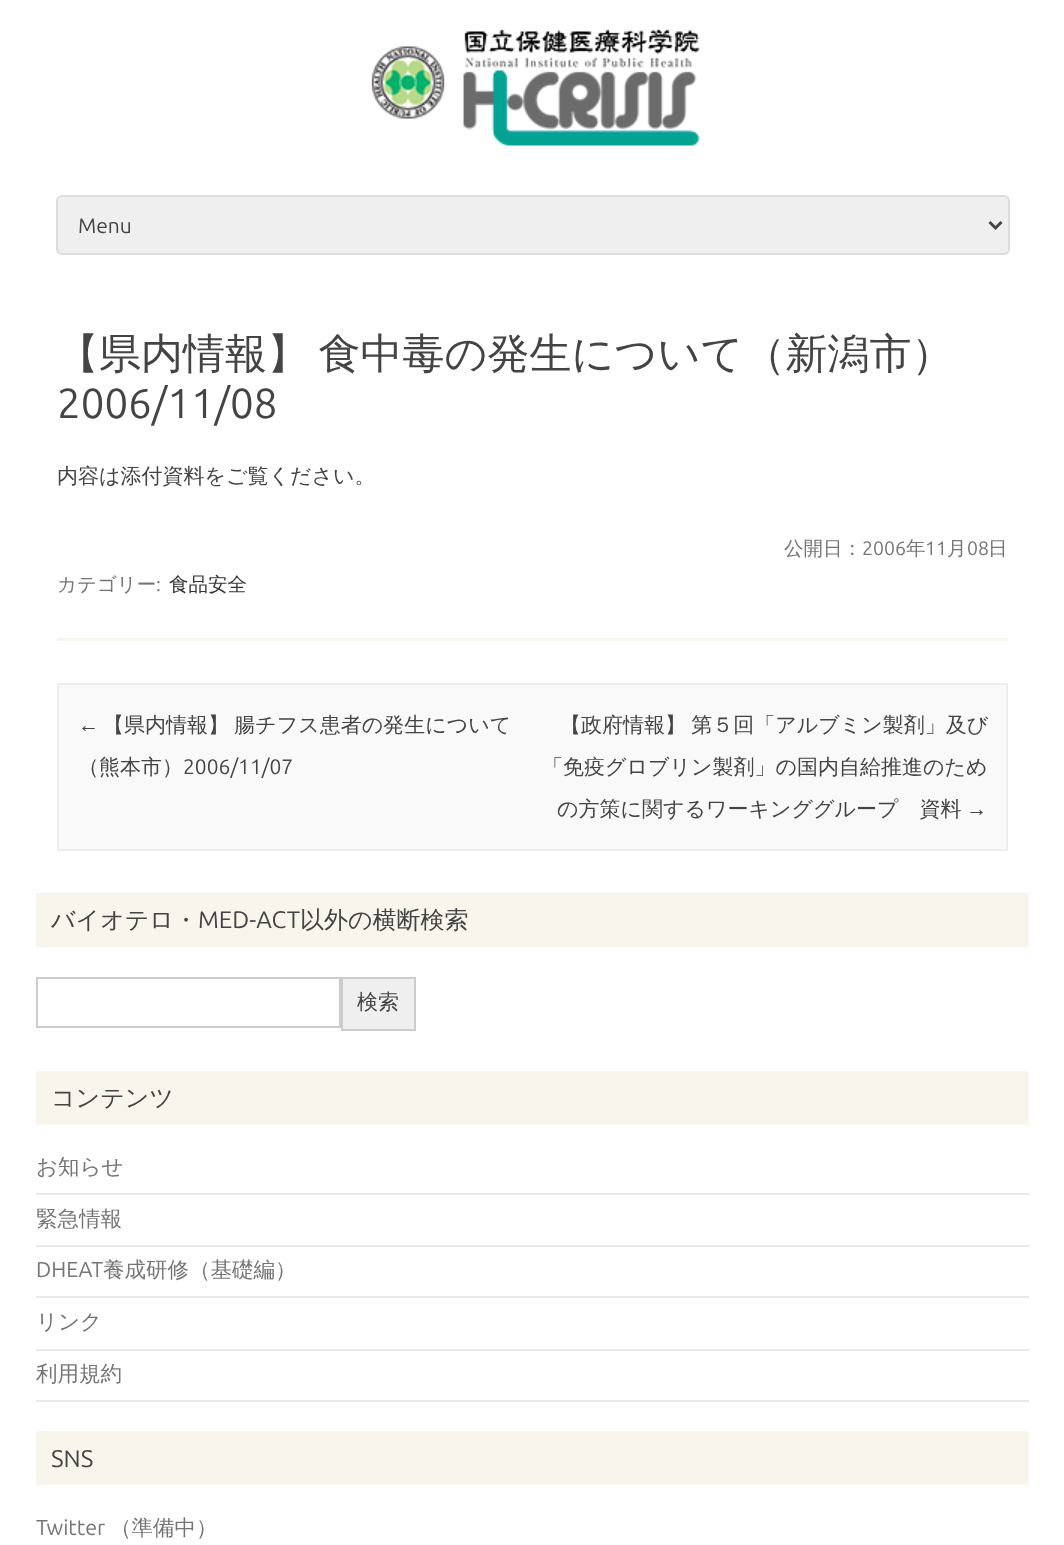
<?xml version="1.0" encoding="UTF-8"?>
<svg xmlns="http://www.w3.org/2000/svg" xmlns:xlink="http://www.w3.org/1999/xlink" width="1064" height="1545">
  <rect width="100%" height="100%" fill="#ffffff" />
  <image x="371" y="29" width="329" height="117" xlink:href="image1.png" />
  <rect x="57" y="196" width="952" height="58" rx="5" fill="#efefef" stroke="#dddddd" stroke-width="2" />
  <path d="M 989.5 222 l 6 6 l 6 -6" fill="none" stroke="#444444" stroke-width="3" />
  <rect x="57" y="638" width="951" height="3" fill="#f8f5ec" />
  <rect x="58" y="684" width="949" height="166" fill="#f9f9f9" stroke="#ededed" stroke-width="2" />
  <rect x="36" y="893" width="993" height="54" fill="#f8f5ec" />
  <rect x="37" y="978" width="303" height="49" fill="none" stroke="#cccccc" stroke-width="2" />
  <rect x="342" y="978" width="73" height="52" fill="#efefef" stroke="#cccccc" stroke-width="2" />
  <rect x="36" y="1071" width="993" height="54" fill="#f8f5ec" />
  <rect x="36" y="1193" width="993" height="2" fill="#e9e9e9" />
  <rect x="36" y="1245" width="993" height="2" fill="#e9e9e9" />
  <rect x="36" y="1296" width="993" height="2" fill="#e9e9e9" />
  <rect x="36" y="1349" width="993" height="2" fill="#e9e9e9" />
  <rect x="36" y="1400" width="993" height="2" fill="#e9e9e9" />
  <rect x="36" y="1431" width="993" height="54" fill="#f8f5ec" />
  <text x="78" y="233" style="font-family: Ubuntu; font-size: 21px; fill: #444444">Menu</text>
  <text x="57" y="368" word-spacing="-3" style="font-family: WenQuanYi Zen Hei; font-size: 42px; font-weight: 500; fill: #444444">【県内情報】 食中毒の発生について（新潟市）</text>
  <text x="57" y="418" style="font-family: Ubuntu; font-size: 42px; fill: #444444">2006/11/08</text>
  <text x="57" y="483" style="font-family: WenQuanYi Zen Hei; font-size: 21px; font-weight: 500; fill: #444444">内容は添付資料をご覧ください。</text>
  <text x="784" y="555" style="font-family: WenQuanYi Zen Hei; font-size: 19.5px; font-weight: 500; fill: #757575">公開日：</text>
  <text x="862" y="555" style="font-family: Ubuntu; font-size: 19.5px; fill: #757575">2006</text>
  <text x="906" y="555" style="font-family: WenQuanYi Zen Hei; font-size: 19.5px; font-weight: 500; fill: #757575">年</text>
  <text x="925" y="555" style="font-family: Ubuntu; font-size: 19.5px; fill: #757575">11</text>
  <text x="947" y="555" style="font-family: WenQuanYi Zen Hei; font-size: 19.5px; font-weight: 500; fill: #757575">月</text>
  <text x="967" y="555" style="font-family: Ubuntu; font-size: 19.5px; fill: #757575">08</text>
  <text x="988" y="555" style="font-family: WenQuanYi Zen Hei; font-size: 19.5px; font-weight: 500; fill: #757575">日</text>
  <text x="57" y="591" style="font-family: WenQuanYi Zen Hei; font-size: 19.5px; font-weight: 500; fill: #757575">カテゴリー</text>
  <text x="156" y="591" style="font-family: Ubuntu; font-size: 19.5px; fill: #757575">:</text>
  <text x="169" y="591" style="font-family: WenQuanYi Zen Hei; font-size: 19.5px; font-weight: 500; fill: #333333">食品安全</text>
  <text x="78" y="732" style="font-family: Liberation Sans; font-size: 21px; fill: #444444">←</text>
  <text x="103" y="732" word-spacing="-1" style="font-family: WenQuanYi Zen Hei; font-size: 21px; font-weight: 500; fill: #444444">【県内情報】 腸チフス患者の発生について</text>
  <text x="78" y="774" style="font-family: WenQuanYi Zen Hei; font-size: 21px; font-weight: 500; fill: #444444">（熊本市）</text>
  <text x="183" y="774" style="font-family: Ubuntu; font-size: 21px; fill: #444444">2006/11/07</text>
  <text x="560" y="732" word-spacing="-1" style="font-family: WenQuanYi Zen Hei; font-size: 21px; font-weight: 500; fill: #444444">【政府情報】 第５回「アルブミン製剤」及び</text>
  <text x="542" y="774" style="font-family: WenQuanYi Zen Hei; font-size: 21px; font-weight: 500; fill: #444444">「免疫グロブリン製剤」の国内自給推進のため</text>
  <text x="557" y="816" style="font-family: WenQuanYi Zen Hei; font-size: 21px; font-weight: 500; fill: #444444">の方策に関するワーキンググループ　資料</text>
  <text x="966" y="816" style="font-family: Liberation Sans; font-size: 21px; fill: #444444">→</text>
  <text x="51" y="928" style="font-family: WenQuanYi Zen Hei; font-size: 24px; font-weight: 500; fill: #444444">バイオテロ・</text>
  <text x="198" y="928" style="font-family: Ubuntu; font-size: 24px; fill: #444444">MED-ACT</text>
  <text x="300" y="928" style="font-family: WenQuanYi Zen Hei; font-size: 24px; font-weight: 500; fill: #444444">以外の横断検索</text>
  <text x="357" y="1009" style="font-family: WenQuanYi Zen Hei; font-size: 21px; font-weight: 500; fill: #444444">検索</text>
  <text x="51" y="1106" style="font-family: WenQuanYi Zen Hei; font-size: 24px; font-weight: 500; fill: #444444">コンテンツ</text>
  <text x="36" y="1174" style="font-family: WenQuanYi Zen Hei; font-size: 21.5px; font-weight: 500; fill: #757575">お知らせ</text>
  <text x="36" y="1226" style="font-family: WenQuanYi Zen Hei; font-size: 21.5px; font-weight: 500; fill: #757575">緊急情報</text>
  <text x="36" y="1277" style="font-family: Ubuntu; font-size: 21.5px; fill: #757575">DHEAT</text>
  <text x="103" y="1277" style="font-family: WenQuanYi Zen Hei; font-size: 21.5px; font-weight: 500; fill: #757575">養成研修（基礎編）</text>
  <text x="36" y="1329" style="font-family: WenQuanYi Zen Hei; font-size: 21.5px; font-weight: 500; fill: #757575">リンク</text>
  <text x="36" y="1381" style="font-family: WenQuanYi Zen Hei; font-size: 21.5px; font-weight: 500; fill: #757575">利用規約</text>
  <text x="51" y="1467" style="font-family: Ubuntu; font-size: 24px; fill: #444444">SNS</text>
  <text x="36" y="1535" style="font-family: Ubuntu; font-size: 21.5px; fill: #757575">Twitter</text>
  <text x="110" y="1535" style="font-family: WenQuanYi Zen Hei; font-size: 21.5px; font-weight: 500; fill: #757575">（準備中）</text>
</svg>
